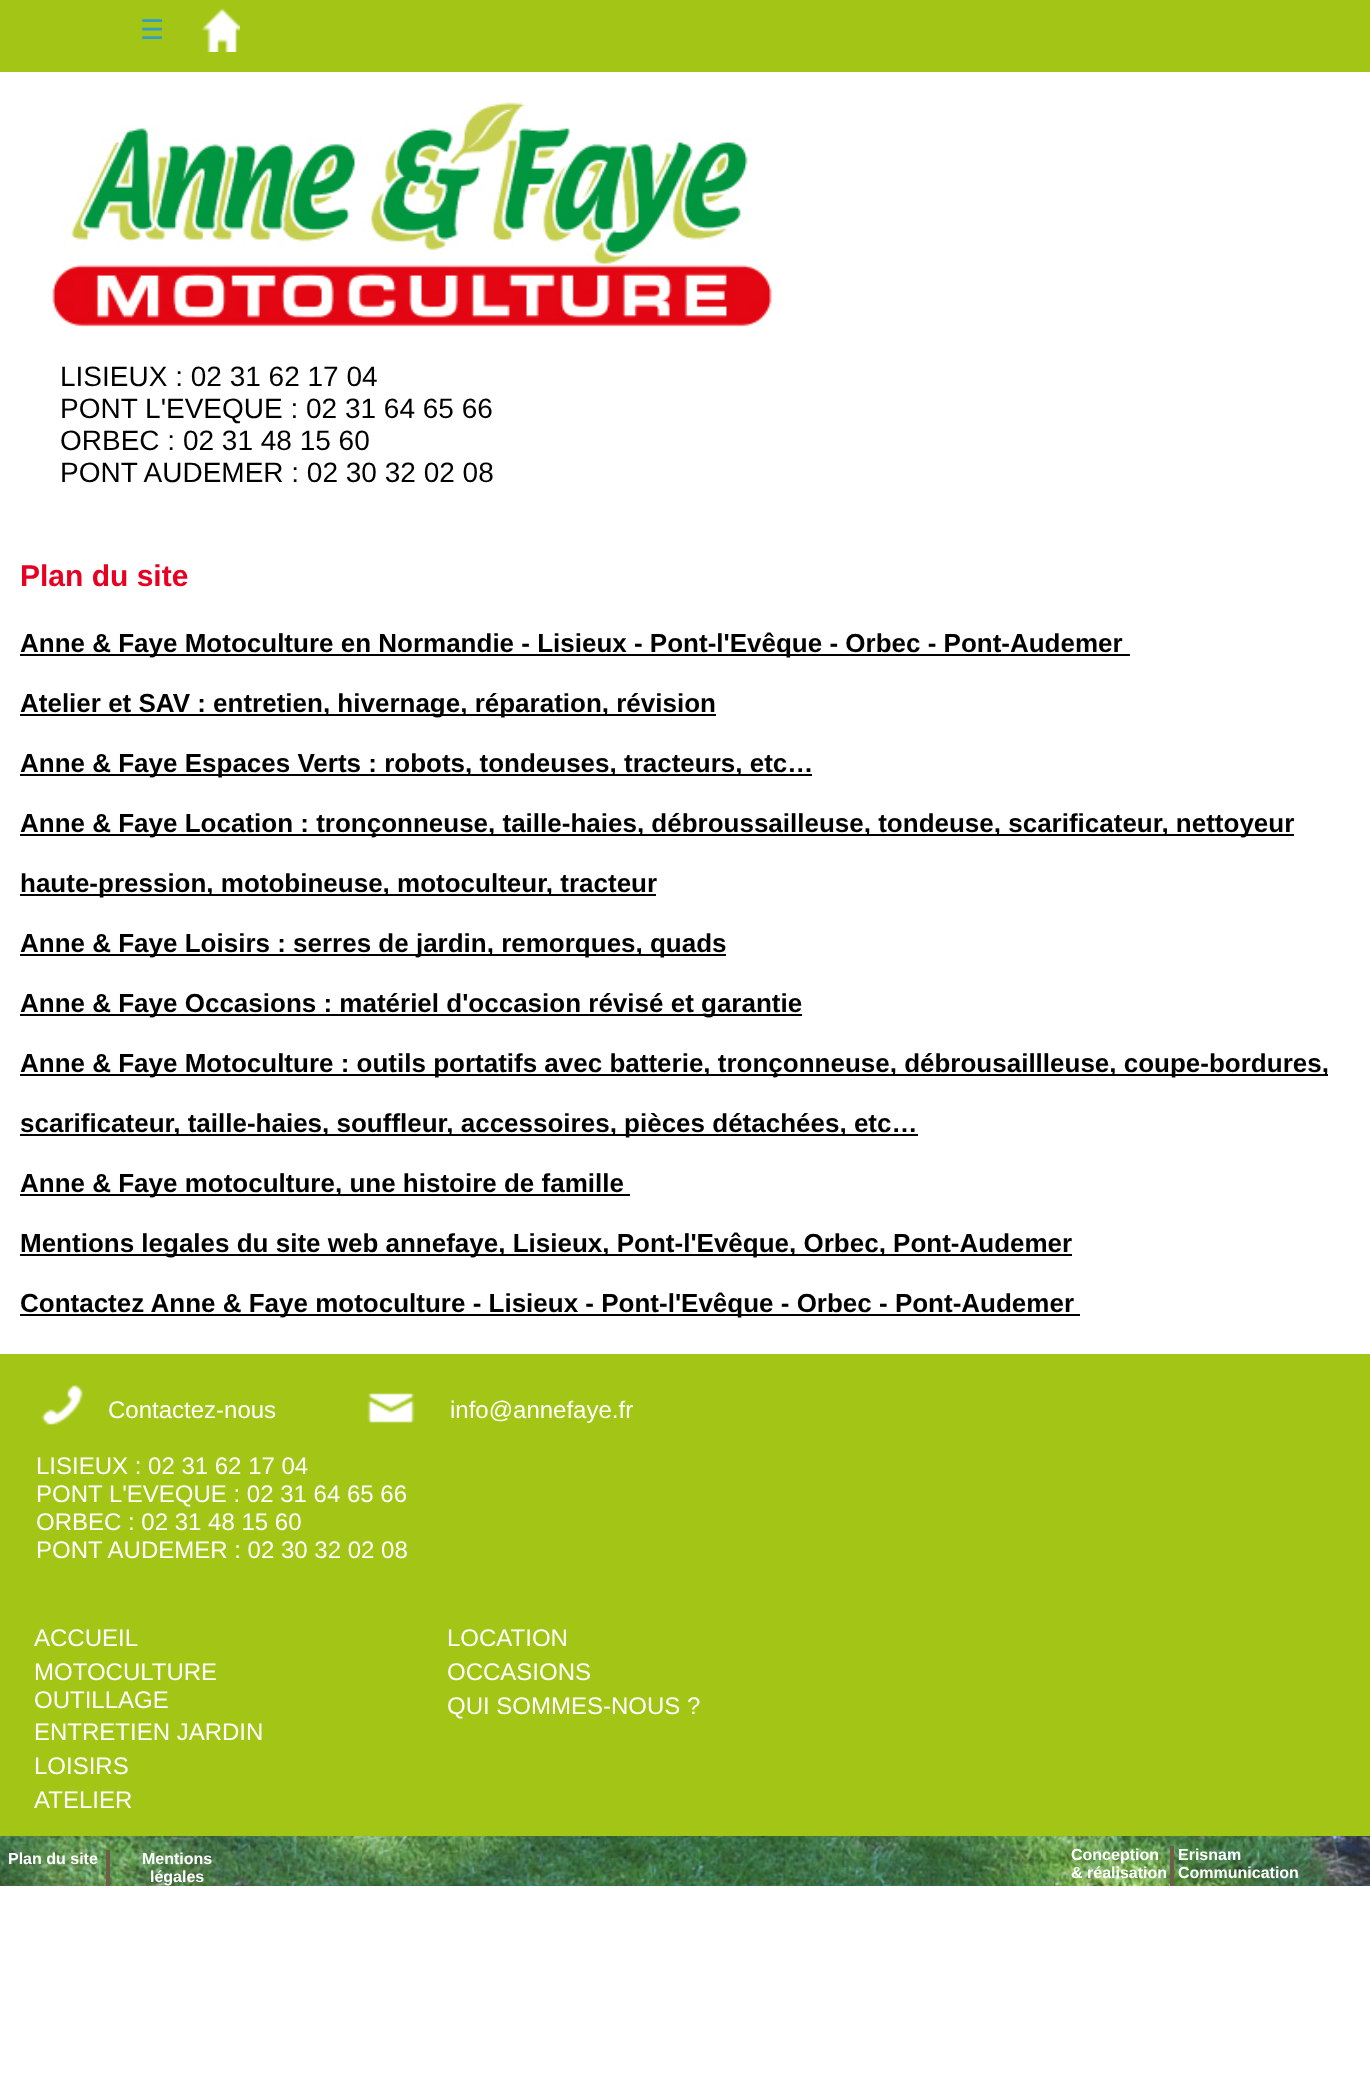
<?xml version="1.0" encoding="UTF-8"?>
<svg xmlns="http://www.w3.org/2000/svg" xmlns:xlink="http://www.w3.org/1999/xlink" width="1370" height="2077">
  <rect width="100%" height="100%" fill="#ffffff" />
  <image x="0" y="1836" width="1370" height="50" xlink:href="image1.png" />
  <rect width="1370" height="72" fill="#a3c616" />
  <image x="202" y="8" width="38" height="44" xlink:href="image2.png" />
  <image x="52" y="100" width="720" height="227" xlink:href="image3.png" />
  <rect x="20" y="654" width="1110" height="2" fill="#000000" />
  <rect x="20" y="714" width="696" height="2" fill="#000000" />
  <rect x="20" y="774" width="792" height="2" fill="#000000" />
  <rect x="20" y="834" width="1274" height="2" fill="#000000" />
  <rect x="20" y="894" width="636" height="2" fill="#000000" />
  <rect x="20" y="954" width="706" height="2" fill="#000000" />
  <rect x="20" y="1014" width="782" height="2" fill="#000000" />
  <rect x="20" y="1074" width="1308" height="2" fill="#000000" />
  <rect x="20" y="1134" width="898" height="2" fill="#000000" />
  <rect x="20" y="1194" width="610" height="2" fill="#000000" />
  <rect x="20" y="1254" width="1052" height="2" fill="#000000" />
  <rect x="20" y="1314" width="1060" height="2" fill="#000000" />
  <rect y="1354" width="1370" height="482" fill="#a3c616" />
  <image x="41" y="1385" width="42" height="40" xlink:href="image4.png" />
  <image x="367" y="1393" width="48" height="30" xlink:href="image5.png" />
  <rect x="106" y="1850" width="4" height="36" fill="#6f5c4c" />
  <rect x="1170" y="1846" width="4" height="40" fill="#6f5c4c" />
  <text x="140" y="39" style="font-family: DejaVu Sans; font-size: 27px; fill: #379dc3">☰</text>
  <text x="60" y="386" style="font-family: Liberation Sans; font-size: 28px; fill: #000000">LISIEUX : 02 31 62 17 04</text>
  <text x="60" y="418" style="font-family: Liberation Sans; font-size: 28px; fill: #000000">PONT L'EVEQUE : 02 31 64 65 66</text>
  <text x="60" y="450" style="font-family: Liberation Sans; font-size: 28px; fill: #000000">ORBEC : 02 31 48 15 60</text>
  <text x="60" y="482" style="font-family: Liberation Sans; font-size: 28px; fill: #000000">PONT AUDEMER : 02 30 32 02 08</text>
  <text x="20" y="586" style="font-family: Liberation Sans; font-size: 30px; font-weight: bold; fill: #e60021">Plan du site</text>
  <text x="20" y="652" style="font-family: Liberation Sans; font-size: 26px; font-weight: bold; fill: #000000">Anne &amp; Faye Motoculture en Normandie - Lisieux - Pont-l'Evêque - Orbec - Pont-Audemer</text>
  <text x="20" y="712" style="font-family: Liberation Sans; font-size: 26px; font-weight: bold; fill: #000000">Atelier et SAV : entretien, hivernage, réparation, révision</text>
  <text x="20" y="772" style="font-family: Liberation Sans; font-size: 26px; font-weight: bold; fill: #000000">Anne &amp; Faye Espaces Verts : robots, tondeuses, tracteurs, etc…</text>
  <text x="20" y="832" style="font-family: Liberation Sans; font-size: 26px; font-weight: bold; fill: #000000">Anne &amp; Faye Location : tronçonneuse, taille-haies, débroussailleuse, tondeuse, scarificateur, nettoyeur</text>
  <text x="20" y="892" style="font-family: Liberation Sans; font-size: 26px; font-weight: bold; fill: #000000">haute-pression, motobineuse, motoculteur, tracteur</text>
  <text x="20" y="952" style="font-family: Liberation Sans; font-size: 26px; font-weight: bold; fill: #000000">Anne &amp; Faye Loisirs : serres de jardin, remorques, quads</text>
  <text x="20" y="1012" style="font-family: Liberation Sans; font-size: 26px; font-weight: bold; fill: #000000">Anne &amp; Faye Occasions : matériel d'occasion révisé et garantie</text>
  <text x="20" y="1072" style="font-family: Liberation Sans; font-size: 26px; font-weight: bold; fill: #000000">Anne &amp; Faye Motoculture : outils portatifs avec batterie, tronçonneuse, débrousaillleuse, coupe-bordures,</text>
  <text x="20" y="1132" style="font-family: Liberation Sans; font-size: 26px; font-weight: bold; fill: #000000">scarificateur, taille-haies, souffleur, accessoires, pièces détachées, etc…</text>
  <text x="20" y="1192" style="font-family: Liberation Sans; font-size: 26px; font-weight: bold; fill: #000000">Anne &amp; Faye motoculture, une histoire de famille</text>
  <text x="20" y="1252" style="font-family: Liberation Sans; font-size: 26px; font-weight: bold; fill: #000000">Mentions legales du site web annefaye, Lisieux, Pont-l'Evêque, Orbec, Pont-Audemer</text>
  <text x="20" y="1312" style="font-family: Liberation Sans; font-size: 26px; font-weight: bold; fill: #000000">Contactez Anne &amp; Faye motoculture - Lisieux - Pont-l'Evêque - Orbec - Pont-Audemer</text>
  <text x="108" y="1418" style="font-family: Liberation Sans; font-size: 24px; fill: #ffffff">Contactez-nous</text>
  <text x="450" y="1418" style="font-family: Liberation Sans; font-size: 24px; fill: #ffffff">info@annefaye.fr</text>
  <text x="36" y="1474" style="font-family: Liberation Sans; font-size: 24px; fill: #ffffff">LISIEUX : 02 31 62 17 04</text>
  <text x="36" y="1502" style="font-family: Liberation Sans; font-size: 24px; fill: #ffffff">PONT L'EVEQUE : 02 31 64 65 66</text>
  <text x="36" y="1530" style="font-family: Liberation Sans; font-size: 24px; fill: #ffffff">ORBEC : 02 31 48 15 60</text>
  <text x="36" y="1558" style="font-family: Liberation Sans; font-size: 24px; fill: #ffffff">PONT AUDEMER : 02 30 32 02 08</text>
  <text x="34" y="1646" style="font-family: Liberation Sans; font-size: 24px; fill: #ffffff">ACCUEIL</text>
  <text x="34" y="1680" style="font-family: Liberation Sans; font-size: 24px; fill: #ffffff">MOTOCULTURE</text>
  <text x="34" y="1708" style="font-family: Liberation Sans; font-size: 24px; fill: #ffffff">OUTILLAGE</text>
  <text x="34" y="1740" style="font-family: Liberation Sans; font-size: 24px; fill: #ffffff">ENTRETIEN JARDIN</text>
  <text x="34" y="1774" style="font-family: Liberation Sans; font-size: 24px; fill: #ffffff">LOISIRS</text>
  <text x="34" y="1808" style="font-family: Liberation Sans; font-size: 24px; fill: #ffffff">ATELIER</text>
  <text x="447" y="1646" style="font-family: Liberation Sans; font-size: 24px; fill: #ffffff">LOCATION</text>
  <text x="447" y="1680" style="font-family: Liberation Sans; font-size: 24px; fill: #ffffff">OCCASIONS</text>
  <text x="447" y="1714" style="font-family: Liberation Sans; font-size: 24px; fill: #ffffff">QUI SOMMES-NOUS ?</text>
  <text x="8" y="1864" style="font-family: Liberation Sans; font-size: 16px; font-weight: bold; fill: #ffffff">Plan du site</text>
  <text x="142" y="1864" style="font-family: Liberation Sans; font-size: 16px; font-weight: bold; fill: #ffffff">Mentions</text>
  <text x="150" y="1882" style="font-family: Liberation Sans; font-size: 16px; font-weight: bold; fill: #ffffff">légales</text>
  <text x="1071" y="1860" style="font-family: Liberation Sans; font-size: 16px; font-weight: bold; fill: #ffffff">Conception</text>
  <text x="1071" y="1878" style="font-family: Liberation Sans; font-size: 16px; font-weight: bold; fill: #ffffff">&amp; réalisation</text>
  <text x="1178" y="1860" style="font-family: Liberation Sans; font-size: 16px; font-weight: bold; fill: #ffffff">Erisnam</text>
  <text x="1178" y="1878" style="font-family: Liberation Sans; font-size: 16px; font-weight: bold; fill: #ffffff">Communication</text>
</svg>
